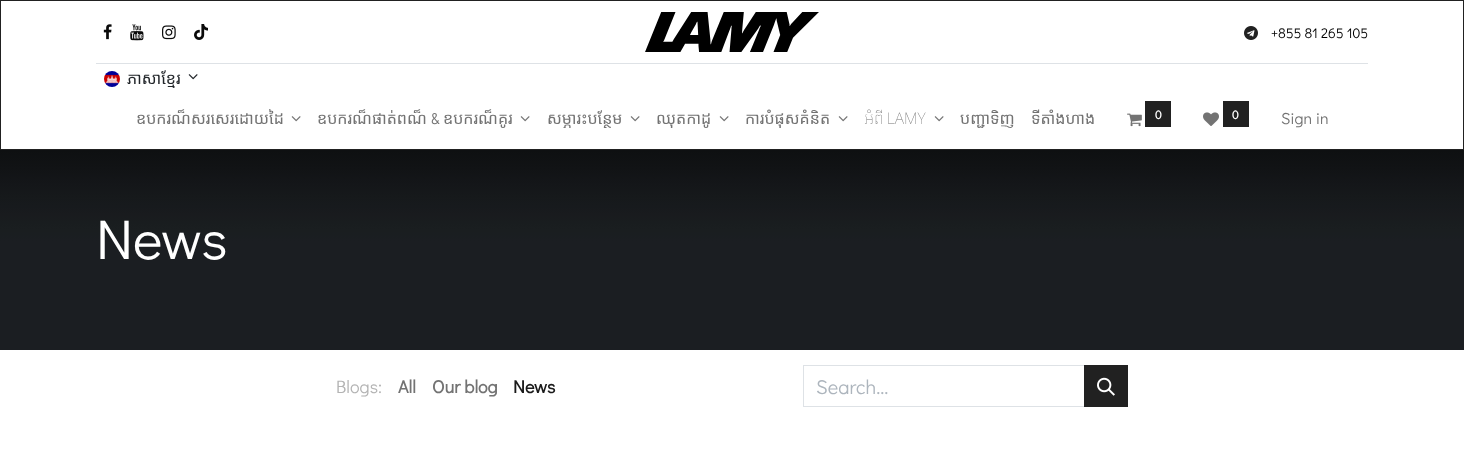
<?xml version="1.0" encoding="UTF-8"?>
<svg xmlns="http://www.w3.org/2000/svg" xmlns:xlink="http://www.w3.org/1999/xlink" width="1464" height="455">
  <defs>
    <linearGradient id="g1" gradientUnits="userSpaceOnUse" x1="732" y1="150" x2="732" y2="250"><stop offset="0" stop-color="#0e1011" /><stop offset="0.19" stop-color="#111315" /><stop offset="0.34" stop-color="#141619" /><stop offset="0.47" stop-color="#16191b" /><stop offset="0.56" stop-color="#171a1d" /><stop offset="0.65" stop-color="#191b1e" /><stop offset="0.73" stop-color="#191d1f" /><stop offset="0.8" stop-color="#1a1e20" /><stop offset="0.86" stop-color="#1a1e21" /><stop offset="0.91" stop-color="#1b1e22" /><stop offset="1" stop-color="#1b1e22" /></linearGradient>
  </defs>
  <rect width="100%" height="100%" fill="#ffffff" />
  <rect x="0.5" y="0.5" width="1463" height="149" fill="none" stroke="#212121" />
  <image x="103" y="24" width="9" height="16" xlink:href="image1.png" />
  <image x="130" y="24" width="14" height="17" xlink:href="image2.png" />
  <image x="162" y="25" width="14" height="15" xlink:href="image3.png" />
  <image x="194" y="24" width="14" height="16" xlink:href="image4.png" />
  <image x="645" y="12" width="174" height="40" xlink:href="image5.png" />
  <image x="1244" y="26" width="14" height="14" xlink:href="image6.png" />
  <rect x="96" y="63" width="1272" height="1" fill="#dee2e6" />
  <image x="104" y="71" width="16" height="16" xlink:href="image7.png" />
  <image x="188" y="74" width="10" height="6" xlink:href="image8.png" />
  <image x="291" y="116" width="10" height="6" xlink:href="image9.png" />
  <image x="520" y="116" width="10" height="6" xlink:href="image9.png" />
  <image x="630" y="116" width="10" height="6" xlink:href="image9.png" />
  <image x="719" y="116" width="10" height="6" xlink:href="image9.png" />
  <image x="838" y="116" width="10" height="6" xlink:href="image9.png" />
  <image x="934" y="116" width="10" height="6" xlink:href="image9.png" />
  <image x="1127" y="113" width="15" height="14" xlink:href="image10.png" />
  <rect x="1145" y="101" width="26" height="26" fill="#212121" />
  <image x="1203" y="112" width="16" height="14" xlink:href="image11.png" />
  <rect x="1223" y="101" width="26" height="26" fill="#212121" />
  <rect y="250" width="1464" height="100" fill="#1b1e22" />
  <rect y="150" width="1464" height="100" fill="url(#g1)" />
  <rect x="803.5" y="365.5" width="281" height="41" fill="none" stroke="#dee2e6" />
  <rect x="1084" y="365" width="44" height="42" fill="#212121" />
  <image x="1097" y="377" width="18" height="19" xlink:href="image12.png" />
  <text x="1271" y="38" style="font-family: Didact Gothic; font-size: 14px; fill: #000000">+855 81 265 105</text>
  <text x="127" y="84" style="font-family: Noto Sans Khmer; font-size: 16px; fill: #212529">ភាសាខ្មែរ</text>
  <text x="136" y="124" style="font-family: Noto Sans Khmer; font-size: 16px; fill: #737373">ឧបករណ៏សរសេរដោយដៃ</text>
  <text x="317" y="124" style="font-family: Noto Sans Khmer; font-size: 16px; fill: #737373">ឧបករណ៏ផាត់ពណ៏</text>
  <text x="431" y="124" style="font-family: Didact Gothic; font-size: 16px; fill: #737373">&amp;</text>
  <text x="443" y="124" style="font-family: Noto Sans Khmer; font-size: 16px; fill: #737373">ឧបករណ៏គូរ</text>
  <text x="547" y="124" style="font-family: Noto Sans Khmer; font-size: 16px; fill: #737373">សម្ភារះបន្ថែម</text>
  <text x="656" y="124" style="font-family: Noto Sans Khmer; font-size: 16px; fill: #737373">ឈុតកាដូ</text>
  <text x="745" y="124" style="font-family: Noto Sans Khmer; font-size: 16px; fill: #737373">ការបំផុសគំនិត</text>
  <text x="864" y="124" word-spacing="-1" style="font-family: Noto Sans Khmer; font-size: 16px; font-weight: 100; fill: #737373">អំពី LAMY</text>
  <text x="960" y="124" style="font-family: Noto Sans Khmer; font-size: 16px; fill: #737373">បញ្ជាទិញ</text>
  <text x="1031" y="124" style="font-family: Noto Sans Khmer; font-size: 16px; fill: #737373">ទីតាំងហាង</text>
  <text x="1155" y="119" style="font-family: Didact Gothic; font-size: 12px; font-weight: bold; fill: #ffffff">0</text>
  <text x="1232" y="119" style="font-family: Didact Gothic; font-size: 12px; font-weight: bold; fill: #ffffff">0</text>
  <text x="1281" y="124" style="font-family: Didact Gothic; font-size: 16px; fill: #737373">Sign in</text>
  <text x="96" y="259" style="font-family: Didact Gothic; font-size: 56px; fill: #ffffff">News</text>
  <text x="336" y="393" style="font-family: Didact Gothic; font-size: 18px; fill: #b3b3b3">Blogs:</text>
  <text x="398" y="393" style="font-family: Didact Gothic; font-size: 18px; font-weight: bold; fill: #737373">All</text>
  <text x="432" y="393" style="font-family: Didact Gothic; font-size: 18px; font-weight: bold; fill: #737373">Our blog</text>
  <text x="513" y="393" style="font-family: Didact Gothic; font-size: 18px; font-weight: bold; fill: #1a1a1a">News</text>
  <text x="816" y="394" style="font-family: Didact Gothic; font-size: 20px; fill: #adb5bd">Search...</text>
</svg>
